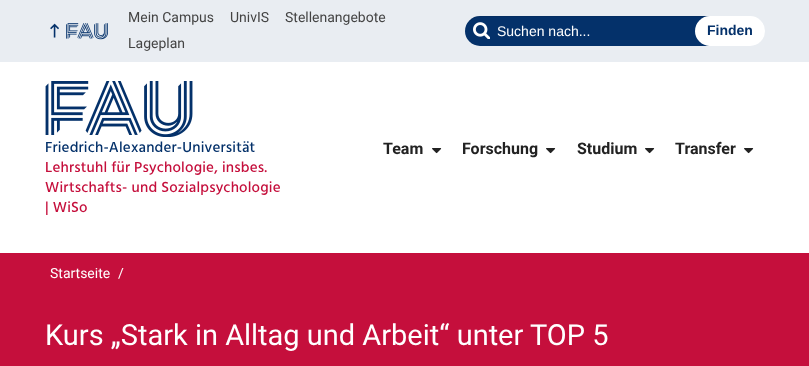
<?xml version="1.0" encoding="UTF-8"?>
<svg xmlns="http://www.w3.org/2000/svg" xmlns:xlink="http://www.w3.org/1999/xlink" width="809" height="366">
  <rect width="100%" height="100%" fill="#ffffff" />
  <rect width="809" height="62" fill="#e9edf2" />
  <image x="50" y="23" width="9" height="15" xlink:href="image1.png" />
  <image x="66" y="23" width="42" height="17" xlink:href="image2.png" />
  <rect x="465" y="16" width="255" height="30" rx="15" fill="#04316a" />
  <path d="M 480 17 h 225 c 8 0 15 7 15 15 c 0 -9 -7 -16 -15 -16 h -225 c -8 0 -15 7 -15 16 c 0 -8 7 -15 15 -15 z" fill="#000000" fill-opacity="0.07" />
  <image x="473" y="22" width="17" height="17" xlink:href="image3.png" />
  <rect x="695" y="16" width="70" height="30" rx="15" fill="#ffffff" />
  <image x="45" y="81" width="148" height="56" xlink:href="image4.png" />
  <image x="432" y="148" width="10" height="6" xlink:href="image5.png" />
  <image x="546" y="148" width="10" height="6" xlink:href="image5.png" />
  <image x="645" y="148" width="10" height="6" xlink:href="image5.png" />
  <image x="744" y="148" width="10" height="6" xlink:href="image5.png" />
  <rect y="253" width="809" height="113" fill="#c50f3c" />
  <text x="128" y="22" style="font-family: Roboto; font-size: 14px; fill: #444444">Mein Campus</text>
  <text x="230" y="22" style="font-family: Roboto; font-size: 14px; fill: #444444">UnivIS</text>
  <text x="285" y="22" style="font-family: Roboto; font-size: 14px; fill: #444444">Stellenangebote</text>
  <text x="128" y="48" style="font-family: Roboto; font-size: 14px; fill: #444444">Lageplan</text>
  <text x="497" y="36" style="font-family: Liberation Sans; font-size: 14px; fill: #ffffff">Suchen nach...</text>
  <text x="707" y="35" style="font-family: Liberation Sans; font-size: 14px; font-weight: bold; fill: #04316a">Finden</text>
  <text x="45" y="152" style="font-family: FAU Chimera; font-size: 15px; font-weight: 500; letter-spacing: 0.2px; fill: #04316a">Friedrich-Alexander-Universität</text>
  <text x="45" y="172" style="font-family: FAU Chimera; font-size: 15px; font-weight: 500; letter-spacing: 0.2px; fill: #c50f3c">Lehrstuhl für Psychologie, insbes.</text>
  <text x="45" y="192" style="font-family: FAU Chimera; font-size: 15px; font-weight: 500; letter-spacing: 0.2px; fill: #c50f3c">Wirtschafts- und Sozialpsychologie</text>
  <text x="45" y="212" style="font-family: FAU Chimera; font-size: 15px; font-weight: 500; letter-spacing: 0.2px; fill: #c50f3c">| WiSo</text>
  <text x="383" y="154" style="font-family: Roboto; font-size: 16px; font-weight: bold; fill: #222222">Team</text>
  <text x="462" y="154" style="font-family: Roboto; font-size: 16px; font-weight: bold; fill: #222222">Forschung</text>
  <text x="577" y="154" style="font-family: Roboto; font-size: 16px; font-weight: bold; fill: #222222">Studium</text>
  <text x="675" y="154" style="font-family: Roboto; font-size: 16px; font-weight: bold; fill: #222222">Transfer</text>
  <text x="50" y="278" style="font-family: Roboto; font-size: 14px; fill: #ffffff">Startseite</text>
  <text x="118" y="278" style="font-family: Roboto; font-size: 14px; fill: #ffffff">/</text>
  <text x="45" y="345" style="font-family: Roboto; font-size: 29px; fill: #ffffff">Kurs „Stark in Alltag und Arbeit“ unter TOP 5</text>
</svg>
